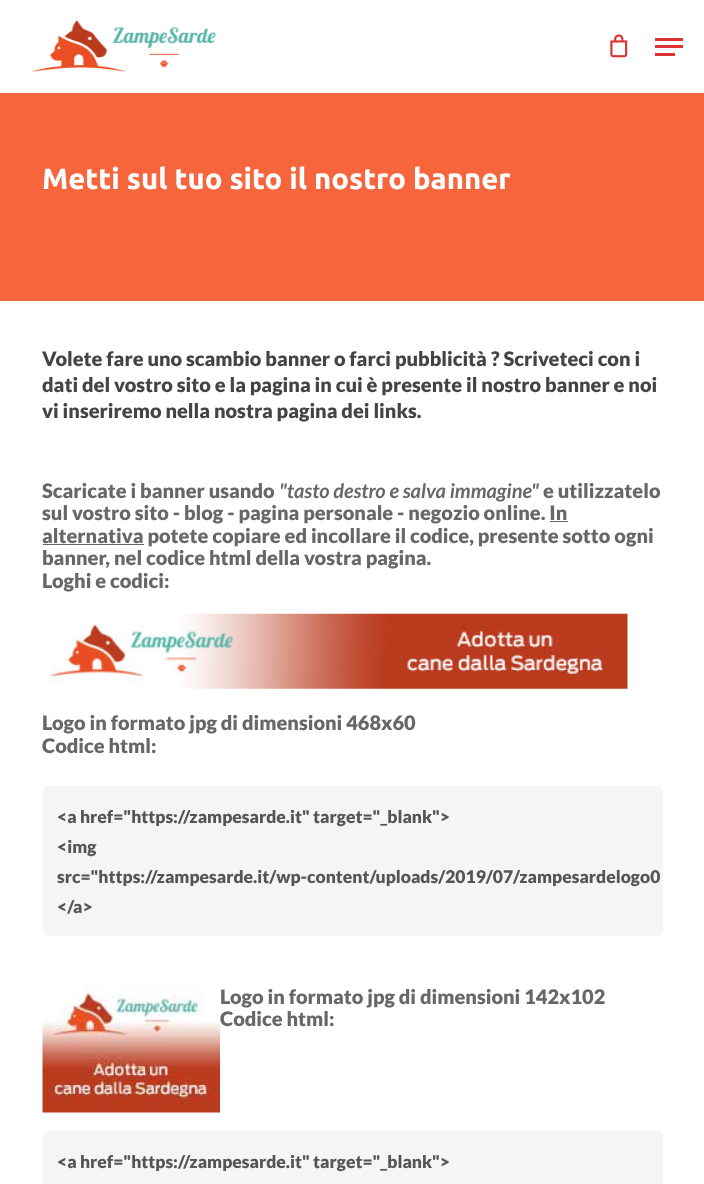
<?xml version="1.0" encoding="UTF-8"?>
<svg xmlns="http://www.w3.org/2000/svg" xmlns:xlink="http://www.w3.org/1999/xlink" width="704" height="1184">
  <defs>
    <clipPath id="clip1"><rect x="45" y="789" width="615" height="145" rx="2.5" /></clipPath>
  </defs>
  <rect width="100%" height="100%" fill="#ffffff" />
  <image x="32" y="20" width="184" height="52" xlink:href="image1.png" />
  <image x="610" y="34" width="18" height="24" xlink:href="image2.png" />
  <rect x="655" y="38" width="28" height="3" fill="#dd3333" />
  <rect x="655" y="53" width="20" height="3" fill="#dd3333" />
  <rect x="655" y="45" width="28" height="3" fill="#dd3333" />
  <rect y="93" width="704" height="208" fill="#f6653c" />
  <rect x="550" y="521" width="18" height="1" fill="#676767" />
  <rect x="43" y="544" width="101" height="1" fill="#676767" />
  <image x="47" y="613" width="581" height="76" xlink:href="image3.png" />
  <rect x="43" y="786" width="620" height="150" rx="5" fill="#f5f5f5" />
  <image x="42" y="985" width="178" height="128" xlink:href="image4.png" />
  <rect x="43" y="1131" width="620" height="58" rx="5" fill="#f5f5f5" />
  <text x="42" y="189" style="font-family: Ubuntu; font-size: 29.25px; font-weight: bold; fill: #ffffff">Metti sul tuo sito il nostro banner</text>
  <text x="42" y="366" style="font-family: Lato; font-size: 20px; font-weight: 900; fill: #444444">Volete fare uno scambio banner o farci pubblicità ? Scriveteci con i</text>
  <text x="42" y="392" style="font-family: Lato; font-size: 20px; font-weight: 900; fill: #444444">dati del vostro sito e la pagina in cui è presente il nostro banner e noi</text>
  <text x="42" y="418" style="font-family: Lato; font-size: 20px; font-weight: 900; fill: #444444">vi inseriremo nella nostra pagina dei links.</text>
  <text x="42" y="498" style="font-family: Lato; font-size: 20px; font-weight: 900; fill: #676767">Scaricate i banner usando</text>
  <text x="279" y="498" style="font-family: Lato; font-size: 20px; font-weight: bold; font-style: italic; fill: #676767">"tasto destro e salva immagine"</text>
  <text x="543" y="498" style="font-family: Lato; font-size: 20px; font-weight: 900; fill: #676767">e utilizzatelo</text>
  <text x="42" y="520" style="font-family: Lato; font-size: 20px; font-weight: 900; fill: #676767">sul vostro sito - blog - pagina personale - negozio online. In</text>
  <text x="42" y="543" style="font-family: Lato; font-size: 20px; font-weight: 900; fill: #676767">alternativa potete copiare ed incollare il codice, presente sotto ogni</text>
  <text x="42" y="565" style="font-family: Lato; font-size: 20px; font-weight: 900; fill: #676767">banner, nel codice html della vostra pagina.</text>
  <text x="42" y="588" style="font-family: Lato; font-size: 20px; font-weight: 900; fill: #676767">Loghi e codici:</text>
  <text x="42" y="730" style="font-family: Lato; font-size: 20px; font-weight: 900; fill: #676767">Logo in formato jpg di dimensioni 468x60</text>
  <text x="42" y="753" style="font-family: Lato; font-size: 20px; font-weight: 900; fill: #676767">Codice html:</text>
  <text x="57" y="823" style="font-family: Lato; font-size: 17.5px; font-weight: 900; fill: #555555">&lt;a href="https://zampesarde.it" target="_blank"&gt;</text>
  <text x="57" y="853" style="font-family: Lato; font-size: 17.5px; font-weight: 900; fill: #555555">&lt;img</text>
  <g clip-path="url(#clip1)">
    <text x="57" y="883" style="font-family: Lato; font-size: 17.5px; font-weight: 900; fill: #555555">src="https://zampesarde.it/wp-content/uploads/2019/07/zampesardelogo0</text>
  </g>
  <text x="57" y="913" style="font-family: Lato; font-size: 17.5px; font-weight: 900; fill: #555555">&lt;/a&gt;</text>
  <text x="220" y="1004" style="font-family: Lato; font-size: 20px; font-weight: 900; fill: #676767">Logo in formato jpg di dimensioni 142x102</text>
  <text x="220" y="1026" style="font-family: Lato; font-size: 20px; font-weight: 900; fill: #676767">Codice html:</text>
  <text x="57" y="1168" style="font-family: Lato; font-size: 17.5px; font-weight: 900; fill: #555555">&lt;a href="https://zampesarde.it" target="_blank"&gt;</text>
</svg>
